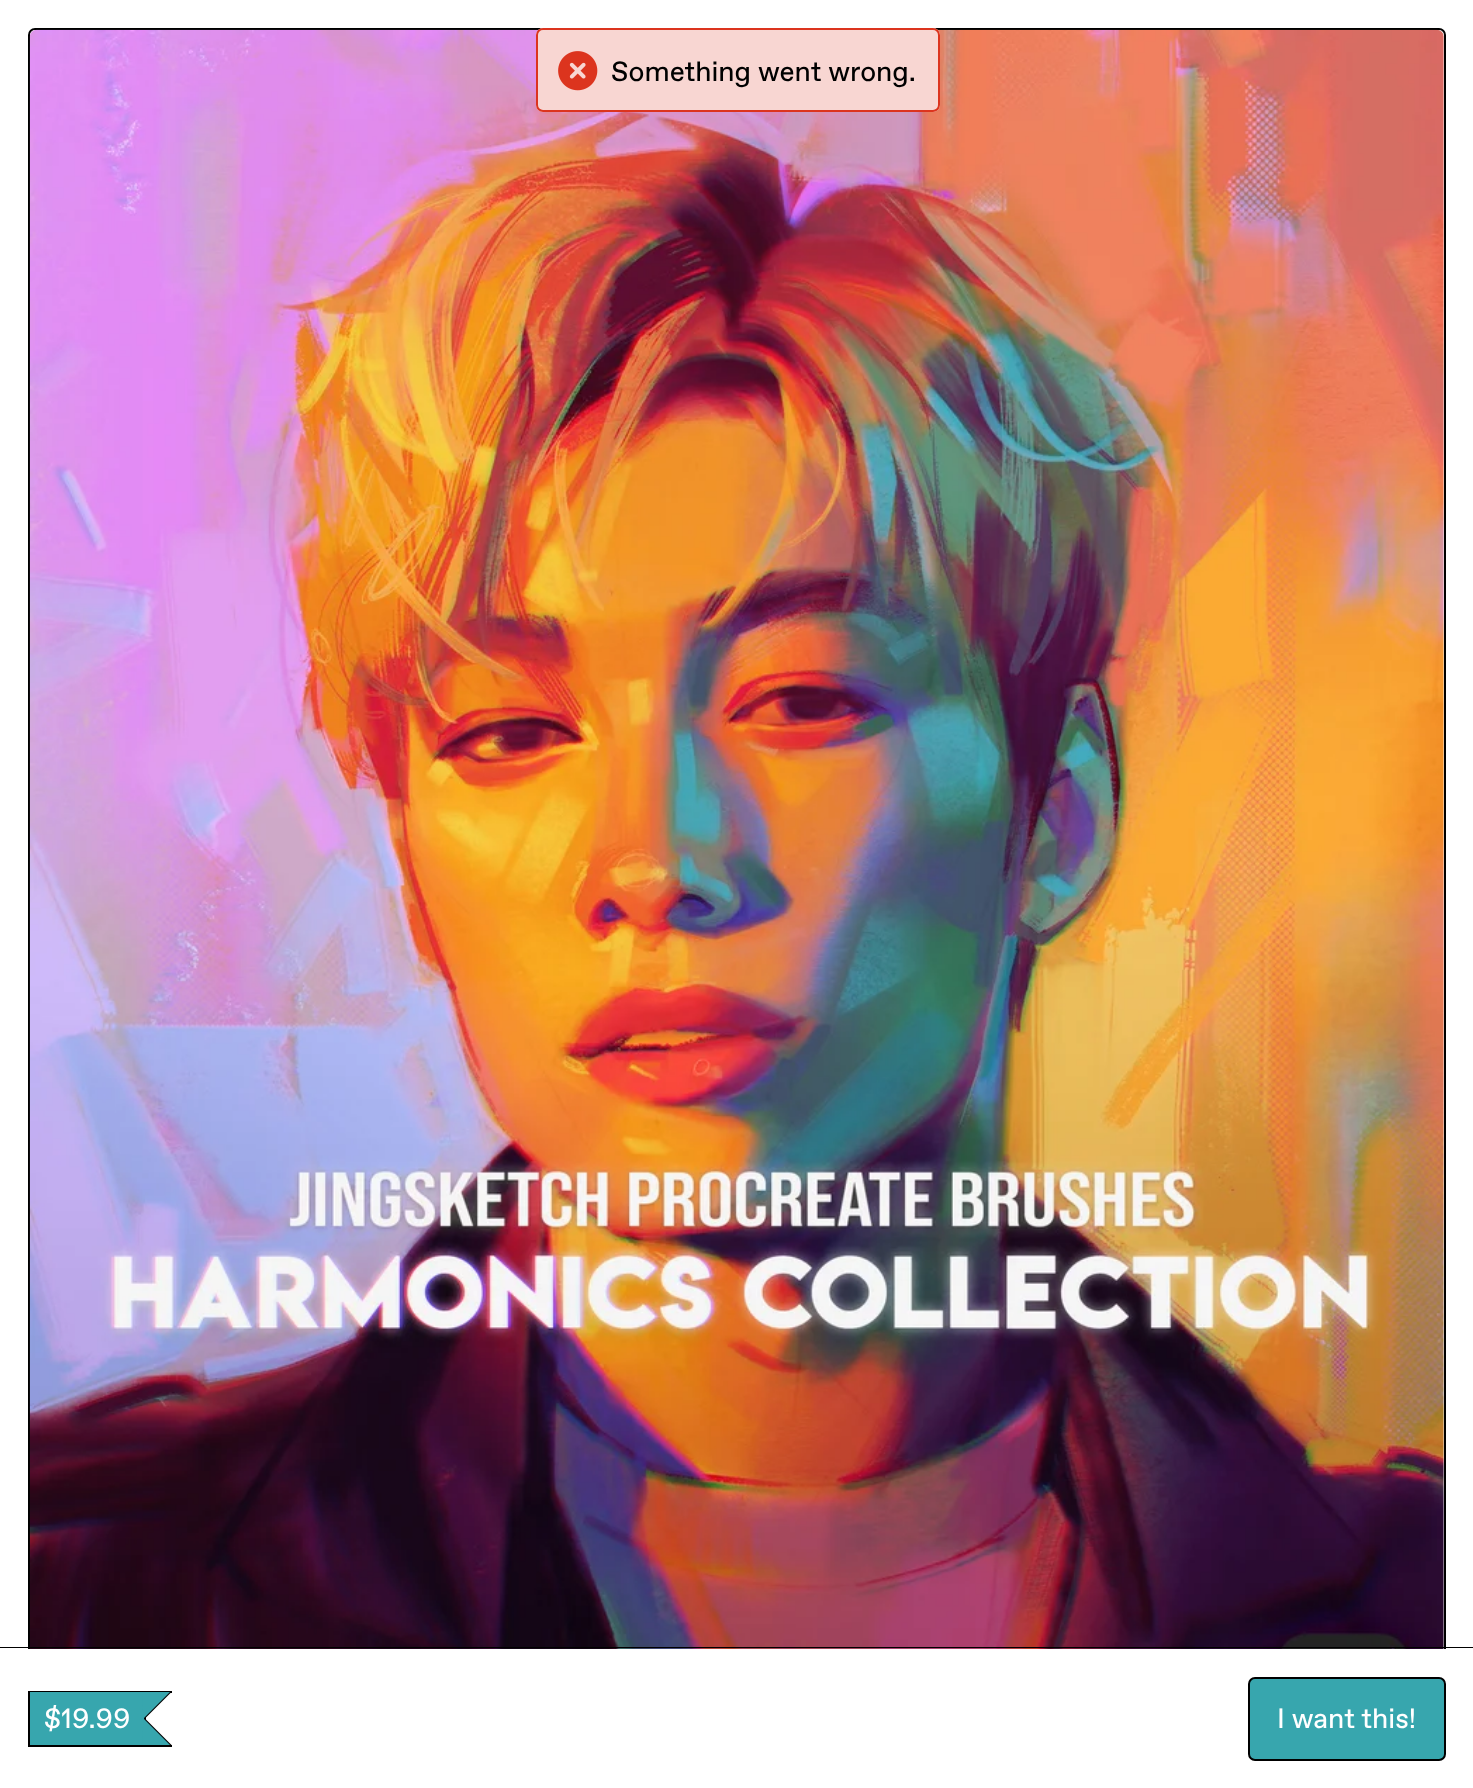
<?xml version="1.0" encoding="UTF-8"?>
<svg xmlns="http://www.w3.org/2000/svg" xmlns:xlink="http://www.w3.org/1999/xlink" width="1473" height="1788">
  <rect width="100%" height="100%" fill="#ffffff" />
  <rect x="29" y="29" width="1416" height="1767" rx="6" fill="none" stroke="#000000" stroke-width="2" />
  <image x="29" y="29" width="1415" height="1620" xlink:href="image2.png" />
  <rect x="536" y="28" width="404" height="84" rx="7" fill="#ffffff" />
  <rect x="537" y="29" width="402" height="82" rx="6" fill="#dc341e" fill-opacity="0.2" stroke="#dc341e" stroke-width="2" />
  <image x="558" y="51" width="40" height="40" xlink:href="image1.png" />
  <path d="M 0 1647 v 1 h 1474 v 139 v -140 z" fill="#000000" />
  <rect x="28" y="1649" width="1418" height="139" fill="#ffffff" />
  <rect x="28" y="1691" width="144" height="2" fill="#000000" />
  <rect x="28" y="1745" width="144" height="2" fill="#000000" />
  <rect x="28" y="1691" width="2" height="56" fill="#000000" />
  <rect x="30" y="1692" width="114" height="53" fill="#37a6ae" />
  <path d="M 143.5 1692 h 28 l -26.5 26.5 z" fill="#000000" />
  <path d="M 171.5 1745 h -28 l 1.5 -26.5 z" fill="#000000" />
  <rect x="144" y="1716" width="2" height="5" fill="#000000" />
  <path d="M 142 1692 h 28 l -26.5 26.5 z" fill="#37a6ae" />
  <path d="M 170 1745 h -28 l 1.5 -26.5 z" fill="#37a6ae" />
  <rect x="1249" y="1678" width="196" height="82" rx="6" fill="#37a6ae" stroke="#000000" stroke-width="2" />
  <text x="611" y="81" style="font-family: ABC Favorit; font-size: 28px; fill: #000000">Something went wrong.</text>
  <text x="44" y="1728" style="font-family: ABC Favorit; font-size: 28px; fill: #ffffff">$19.99</text>
  <text x="1277" y="1728" style="font-family: ABC Favorit; font-size: 28px; fill: #ffffff">I want this!</text>
</svg>
